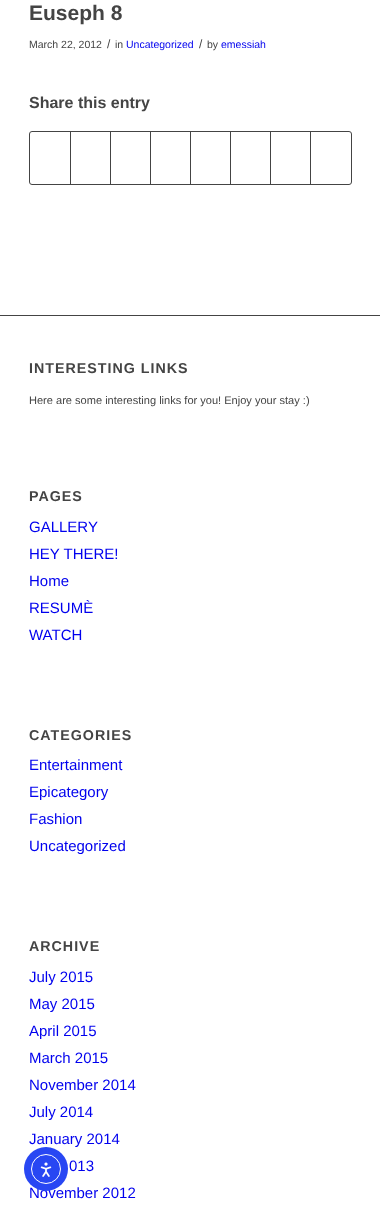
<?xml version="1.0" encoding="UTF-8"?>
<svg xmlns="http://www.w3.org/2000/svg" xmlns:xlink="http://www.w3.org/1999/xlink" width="380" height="1215">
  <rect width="100%" height="100%" fill="#ffffff" />
  <rect x="29.5" y="131.5" width="322" height="53" rx="2.5" fill="none" stroke="#444444" />
  <rect x="70" y="132" width="1" height="52" fill="#444444" />
  <rect x="110" y="132" width="1" height="52" fill="#444444" />
  <rect x="150" y="132" width="1" height="52" fill="#444444" />
  <rect x="190" y="132" width="1" height="52" fill="#444444" />
  <rect x="230" y="132" width="1" height="52" fill="#444444" />
  <rect x="270" y="132" width="1" height="52" fill="#444444" />
  <rect x="310" y="132" width="1" height="52" fill="#444444" />
  <rect y="315" width="380" height="1" fill="#444444" />
  <text x="29" y="20" style="font-family: Liberation Sans; font-size: 21px; font-weight: bold; fill: #444444">Euseph 8</text>
  <text x="29" y="48" style="font-family: Liberation Sans; font-size: 10.5px; fill: #444444">March 22, 2012</text>
  <text x="107" y="48" style="font-family: Liberation Sans; font-size: 12px; fill: #444444">/</text>
  <text x="115" y="48" style="font-family: Liberation Sans; font-size: 10.5px; fill: #444444">in</text>
  <text x="126" y="48" style="font-family: Liberation Sans; font-size: 10.5px; fill: #0000ee">Uncategorized</text>
  <text x="199" y="48" style="font-family: Liberation Sans; font-size: 12px; fill: #444444">/</text>
  <text x="207" y="48" style="font-family: Liberation Sans; font-size: 10.5px; fill: #444444">by</text>
  <text x="221" y="48" style="font-family: Liberation Sans; font-size: 10.5px; fill: #0000ee">emessiah</text>
  <text x="29" y="108" style="font-family: Liberation Sans; font-size: 16px; font-weight: bold; fill: #444444">Share this entry</text>
  <text x="29" y="373" style="font-family: Liberation Sans; font-size: 14.25px; font-weight: bold; letter-spacing: 1px; fill: #444444">INTERESTING LINKS</text>
  <text x="29" y="404" style="font-family: Liberation Sans; font-size: 11.05px; fill: #444444">Here are some interesting links for you! Enjoy your stay :)</text>
  <text x="29" y="501" style="font-family: Liberation Sans; font-size: 14.25px; font-weight: bold; letter-spacing: 1px; fill: #444444">PAGES</text>
  <text x="29" y="532" style="font-family: Liberation Sans; font-size: 15px; fill: #0000ee">GALLERY</text>
  <text x="29" y="559" style="font-family: Liberation Sans; font-size: 15px; fill: #0000ee">HEY THERE!</text>
  <text x="29" y="586" style="font-family: Liberation Sans; font-size: 15px; fill: #0000ee">Home</text>
  <text x="29" y="613" style="font-family: Liberation Sans; font-size: 15px; fill: #0000ee">RESUMÈ</text>
  <text x="29" y="640" style="font-family: Liberation Sans; font-size: 15px; fill: #0000ee">WATCH</text>
  <text x="29" y="740" style="font-family: Liberation Sans; font-size: 14.25px; font-weight: bold; letter-spacing: 1px; fill: #444444">CATEGORIES</text>
  <text x="29" y="770" style="font-family: Liberation Sans; font-size: 15px; fill: #0000ee">Entertainment</text>
  <text x="29" y="797" style="font-family: Liberation Sans; font-size: 15px; fill: #0000ee">Epicategory</text>
  <text x="29" y="824" style="font-family: Liberation Sans; font-size: 15px; fill: #0000ee">Fashion</text>
  <text x="29" y="851" style="font-family: Liberation Sans; font-size: 15px; fill: #0000ee">Uncategorized</text>
  <text x="29" y="951" style="font-family: Liberation Sans; font-size: 14.25px; font-weight: bold; letter-spacing: 1px; fill: #444444">ARCHIVE</text>
  <text x="29" y="982" style="font-family: Liberation Sans; font-size: 15px; fill: #0000ee">July 2015</text>
  <text x="29" y="1009" style="font-family: Liberation Sans; font-size: 15px; fill: #0000ee">May 2015</text>
  <text x="29" y="1036" style="font-family: Liberation Sans; font-size: 15px; fill: #0000ee">April 2015</text>
  <text x="29" y="1063" style="font-family: Liberation Sans; font-size: 15px; fill: #0000ee">March 2015</text>
  <text x="29" y="1090" style="font-family: Liberation Sans; font-size: 15px; fill: #0000ee">November 2014</text>
  <text x="29" y="1117" style="font-family: Liberation Sans; font-size: 15px; fill: #0000ee">July 2014</text>
  <text x="29" y="1144" style="font-family: Liberation Sans; font-size: 15px; fill: #0000ee">January 2014</text>
  <text x="69" y="1171" style="font-family: Liberation Sans; font-size: 15px; fill: #0000ee">013</text>
  <text x="29" y="1198" style="font-family: Liberation Sans; font-size: 15px; fill: #0000ee">November 2012</text>
  <circle cx="46" cy="1169" r="22" fill="#2847f3" />
  <circle cx="46" cy="1169" r="14.5" fill="none" stroke="#ffffff" />
  <image x="40" y="1162" width="12" height="15" xlink:href="image1.png" />
</svg>
